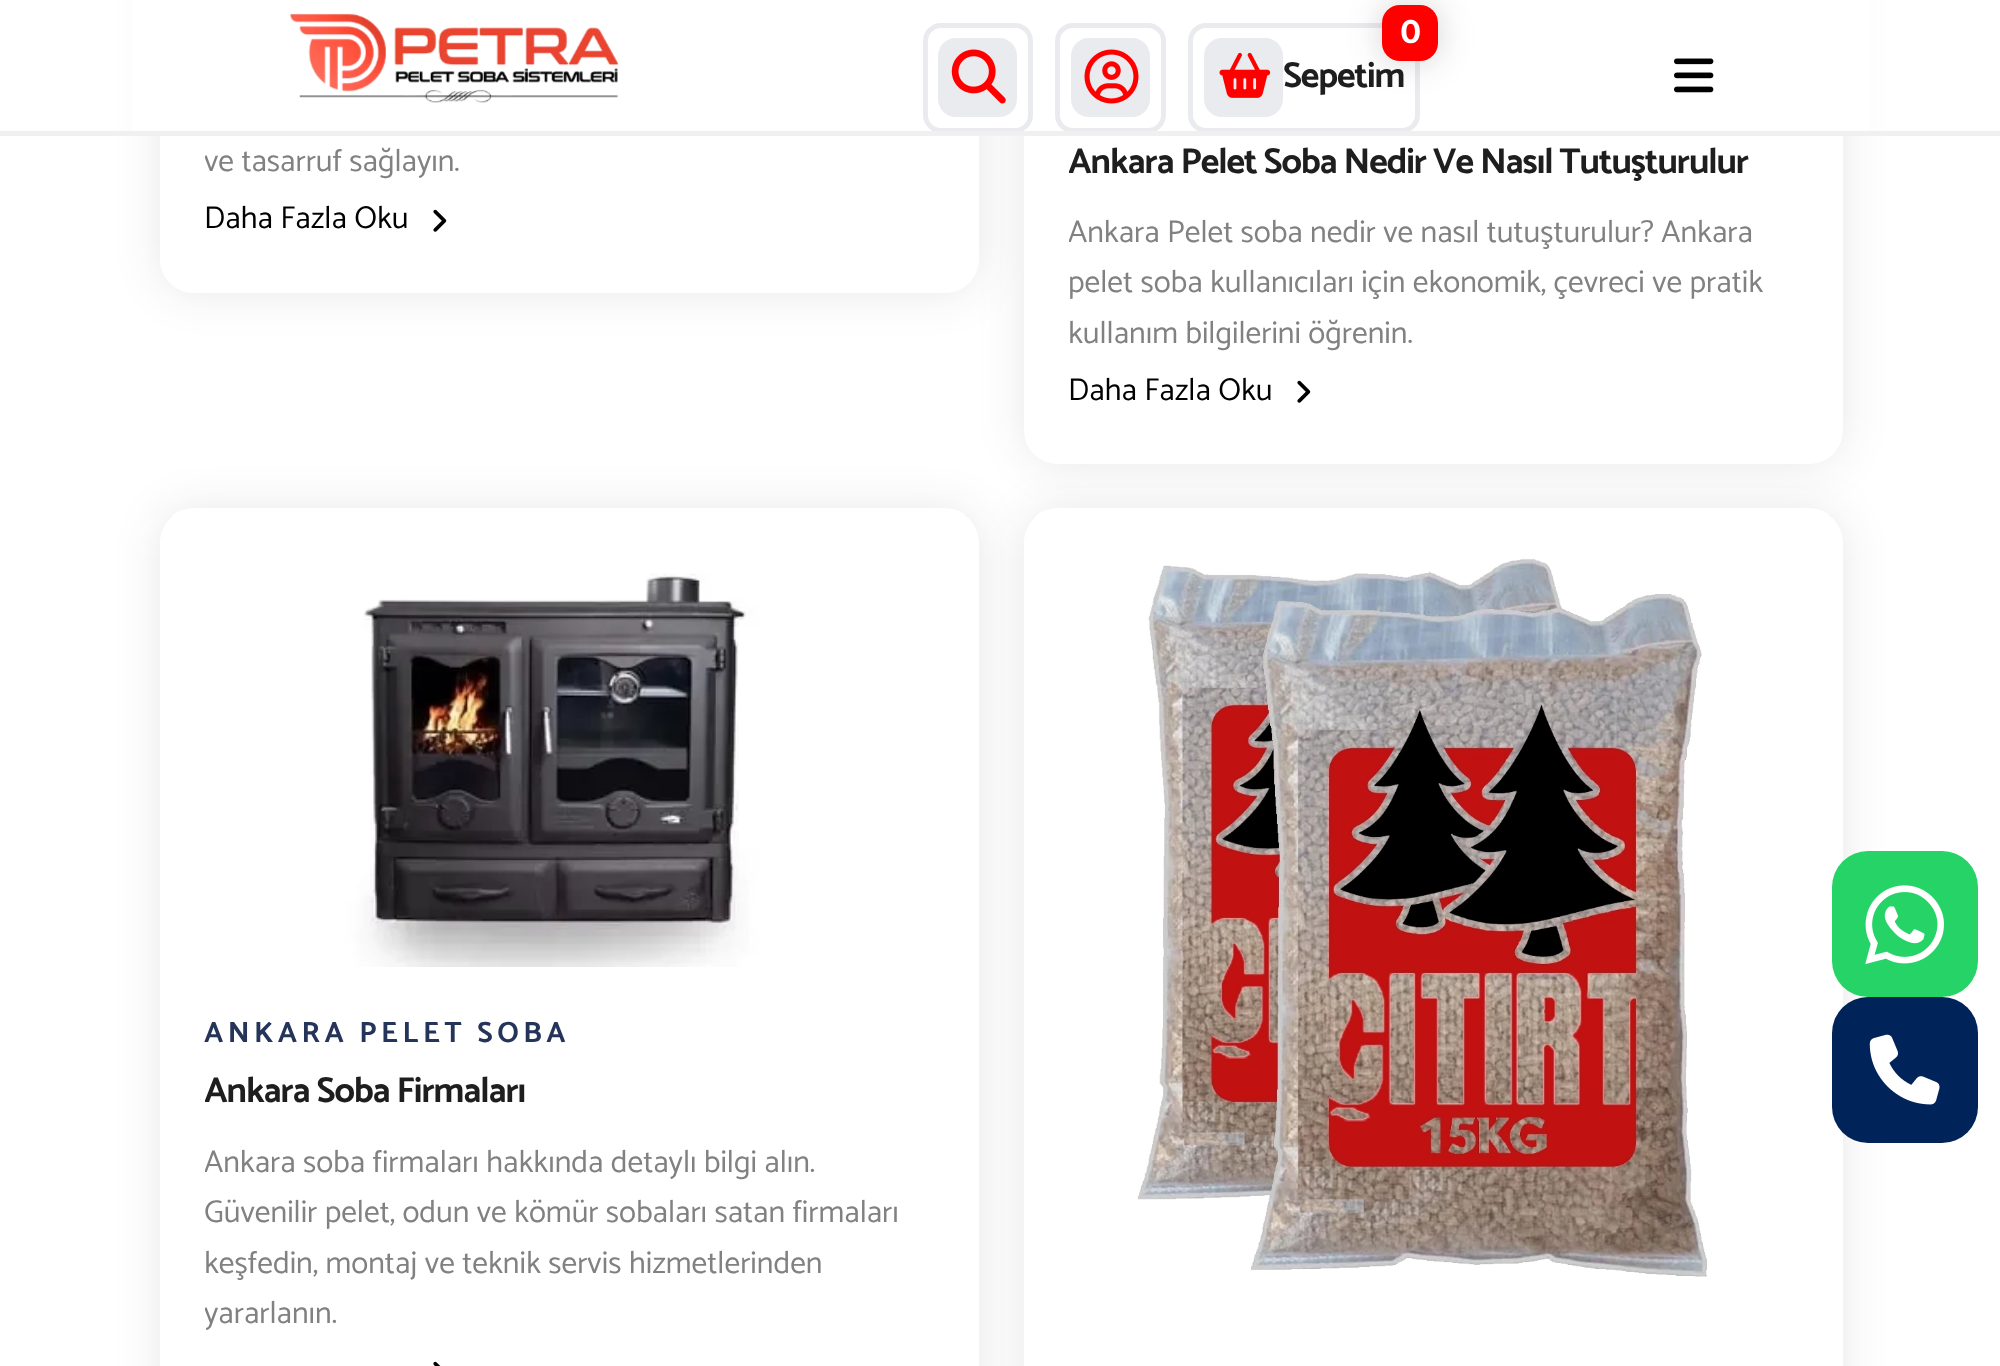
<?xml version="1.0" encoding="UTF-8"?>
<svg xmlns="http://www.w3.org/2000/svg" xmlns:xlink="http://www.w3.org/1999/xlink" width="2000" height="1366">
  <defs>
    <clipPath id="clip1"><path d="M 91 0 h 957 v 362 h -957 z m 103 -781 h 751 c 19 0 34 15 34 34 v 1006 c 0 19 -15 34 -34 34 h -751 c -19 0 -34 -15 -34 -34 v -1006 c 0 -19 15 -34 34 -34 z" clip-rule="evenodd" /></clipPath>
    <clipPath id="clip2"><path d="M 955 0 h 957 v 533 h -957 z m 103 -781 h 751 c 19 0 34 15 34 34 v 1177 c 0 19 -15 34 -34 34 h -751 c -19 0 -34 -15 -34 -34 v -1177 c 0 -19 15 -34 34 -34 z" clip-rule="evenodd" /></clipPath>
    <clipPath id="clip3"><rect width="2000" height="131" /></clipPath>
    <clipPath id="clip4"><path d="M 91 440 h 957 v 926 h -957 z m 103 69 h 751 c 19 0 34 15 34 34 v 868 c 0 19 -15 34 -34 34 h -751 c -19 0 -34 -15 -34 -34 v -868 c 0 -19 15 -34 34 -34 z" clip-rule="evenodd" /></clipPath>
    <clipPath id="clip5"><path d="M 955 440 h 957 v 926 h -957 z m 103 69 h 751 c 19 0 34 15 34 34 v 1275 c 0 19 -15 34 -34 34 h -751 c -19 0 -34 -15 -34 -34 v -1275 c 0 -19 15 -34 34 -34 z" clip-rule="evenodd" /></clipPath>
    <clipPath id="clip6"><rect x="205" y="38" width="729" height="151" /></clipPath>
    <clipPath id="clip7"><rect x="1069" y="142" width="729" height="47" /></clipPath>
    <clipPath id="clip8"><rect x="1069" y="212" width="729" height="150" /></clipPath>
    <clipPath id="clip9"><rect x="205" y="1071" width="729" height="47" /></clipPath>
    <clipPath id="clip10"><rect x="205" y="1141" width="729" height="200" /></clipPath>
  </defs>
  <rect width="100%" height="100%" fill="#ffffff" />
  <g clip-path="url(#clip1)">
    <rect x="160" y="-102" width="819" height="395" rx="34" fill="#1e1e1e" fill-opacity="0.1" filter="blur(22.5px)" />
  </g>
  <g clip-path="url(#clip2)">
    <rect x="1024" y="-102" width="819" height="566" rx="34" fill="#1e1e1e" fill-opacity="0.1" filter="blur(22.5px)" />
  </g>
  <rect x="133" width="1737" height="131" fill="#ffffff" />
  <rect y="131" width="2000" height="5" fill="#f0f0f0" />
  <image x="289" y="13" width="330" height="90" xlink:href="image1.png" />
  <g clip-path="url(#clip3)">
    <rect x="925.5" y="25.5" width="105" height="105" rx="15.5" fill="none" stroke="#e9ebef" stroke-width="5" />
  </g>
  <rect x="938" y="38" width="79" height="79" rx="18" fill="#e9ebef" />
  <image x="951" y="49" width="55" height="55" xlink:href="image2.png" />
  <g clip-path="url(#clip3)">
    <rect x="1057.5" y="25.5" width="106" height="105" rx="15.5" fill="none" stroke="#e9ebef" stroke-width="5" />
  </g>
  <rect x="1071" y="38" width="79" height="79" rx="18" fill="#e9ebef" />
  <image x="1084" y="49" width="55" height="55" xlink:href="image3.png" />
  <g clip-path="url(#clip3)">
    <rect x="1190.5" y="25.5" width="227" height="105" rx="15.5" fill="none" stroke="#e9ebef" stroke-width="5" />
  </g>
  <rect x="1382" y="5" width="56" height="56" rx="18" fill="#1e1e1e" fill-opacity="0.2" filter="blur(17px)" />
  <rect x="1382" y="5" width="56" height="56" rx="18" fill="#ff0000" />
  <rect x="1204" y="38" width="79" height="79" rx="18" fill="#e9ebef" />
  <image x="1219" y="52" width="52" height="46" xlink:href="image4.png" />
  <image x="1674" y="58" width="40" height="35" xlink:href="image5.png" />
  <image x="433" y="209" width="14" height="23" xlink:href="image6.png" />
  <image x="1297" y="380" width="14" height="23" xlink:href="image6.png" />
  <g clip-path="url(#clip4)">
    <rect x="160" y="509" width="819" height="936" rx="34" fill="#1e1e1e" fill-opacity="0.1" filter="blur(22.5px)" />
  </g>
  <image x="172" y="508" width="793" height="459" xlink:href="image7.png" />
  <image x="433" y="1361" width="8" height="5" xlink:href="image8.png" />
  <g clip-path="url(#clip5)">
    <rect x="1024" y="509" width="819" height="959" rx="34" fill="#1e1e1e" fill-opacity="0.1" filter="blur(22.5px)" />
  </g>
  <image x="1035" y="508" width="794" height="769" xlink:href="image9.png" />
  <rect x="1832" y="851" width="146" height="146" rx="36" fill="#25d366" />
  <image x="1865" y="885" width="79" height="80" xlink:href="image10.png" />
  <rect x="1832" y="997" width="146" height="146" rx="36" fill="#00235a" />
  <image x="1869" y="1034" width="71" height="71" xlink:href="image11.png" />
  <text x="1400" y="43" style="font-family: Inter; font-size: 31.5px; font-weight: bold; letter-spacing: -1.1px; fill: #ffffff">0</text>
  <text x="1283" y="87" style="font-family: Catamaran; font-size: 36px; font-weight: bold; letter-spacing: -1.1px; fill: #1e1e1e">Sepetim</text>
  <g clip-path="url(#clip6)">
    <text x="204" y="171" style="font-family: Catamaran; font-size: 31.5px; fill: #818181">ve tasarruf sağlayın.</text>
  </g>
  <text x="204" y="228" style="font-family: Catamaran; font-size: 31.5px; fill: #000000">Daha Fazla Oku</text>
  <g clip-path="url(#clip7)">
    <text x="1068" y="173" style="font-family: Catamaran; font-size: 36px; font-weight: bold; letter-spacing: -1.1px; fill: #1e1e1e">Ankara Pelet Soba Nedir Ve Nasıl Tutuşturulur</text>
  </g>
  <g clip-path="url(#clip8)">
    <text x="1068" y="242" style="font-family: Catamaran; font-size: 31.5px; fill: #818181">Ankara Pelet soba nedir ve nasıl tutuşturulur? Ankara</text>
  </g>
  <text x="1068" y="292" style="font-family: Catamaran; font-size: 31.5px; fill: #818181">pelet soba kullanıcıları için ekonomik, çevreci ve pratik</text>
  <text x="1068" y="343" style="font-family: Catamaran; font-size: 31.5px; fill: #818181">kullanım bilgilerini öğrenin.</text>
  <text x="1068" y="400" style="font-family: Catamaran; font-size: 31.5px; fill: #000000">Daha Fazla Oku</text>
  <text x="204" y="1042" style="font-family: Catamaran; font-size: 29.25px; font-weight: bold; letter-spacing: 4.5px; fill: #25355a">ANKARA PELET SOBA</text>
  <g clip-path="url(#clip9)">
    <text x="204" y="1102" style="font-family: Catamaran; font-size: 36px; font-weight: bold; letter-spacing: -1.1px; fill: #1e1e1e">Ankara Soba Firmaları</text>
  </g>
  <g clip-path="url(#clip10)">
    <text x="204" y="1172" style="font-family: Catamaran; font-size: 31.5px; fill: #818181">Ankara soba firmaları hakkında detaylı bilgi alın.</text>
  </g>
  <text x="204" y="1222" style="font-family: Catamaran; font-size: 31.5px; fill: #818181">Güvenilir pelet, odun ve kömür sobaları satan firmaları</text>
  <text x="204" y="1273" style="font-family: Catamaran; font-size: 31.5px; fill: #818181">keşfedin, montaj ve teknik servis hizmetlerinden</text>
  <g clip-path="url(#clip10)">
    <text x="204" y="1323" style="font-family: Catamaran; font-size: 31.5px; fill: #818181">yararlanın.</text>
  </g>
</svg>
